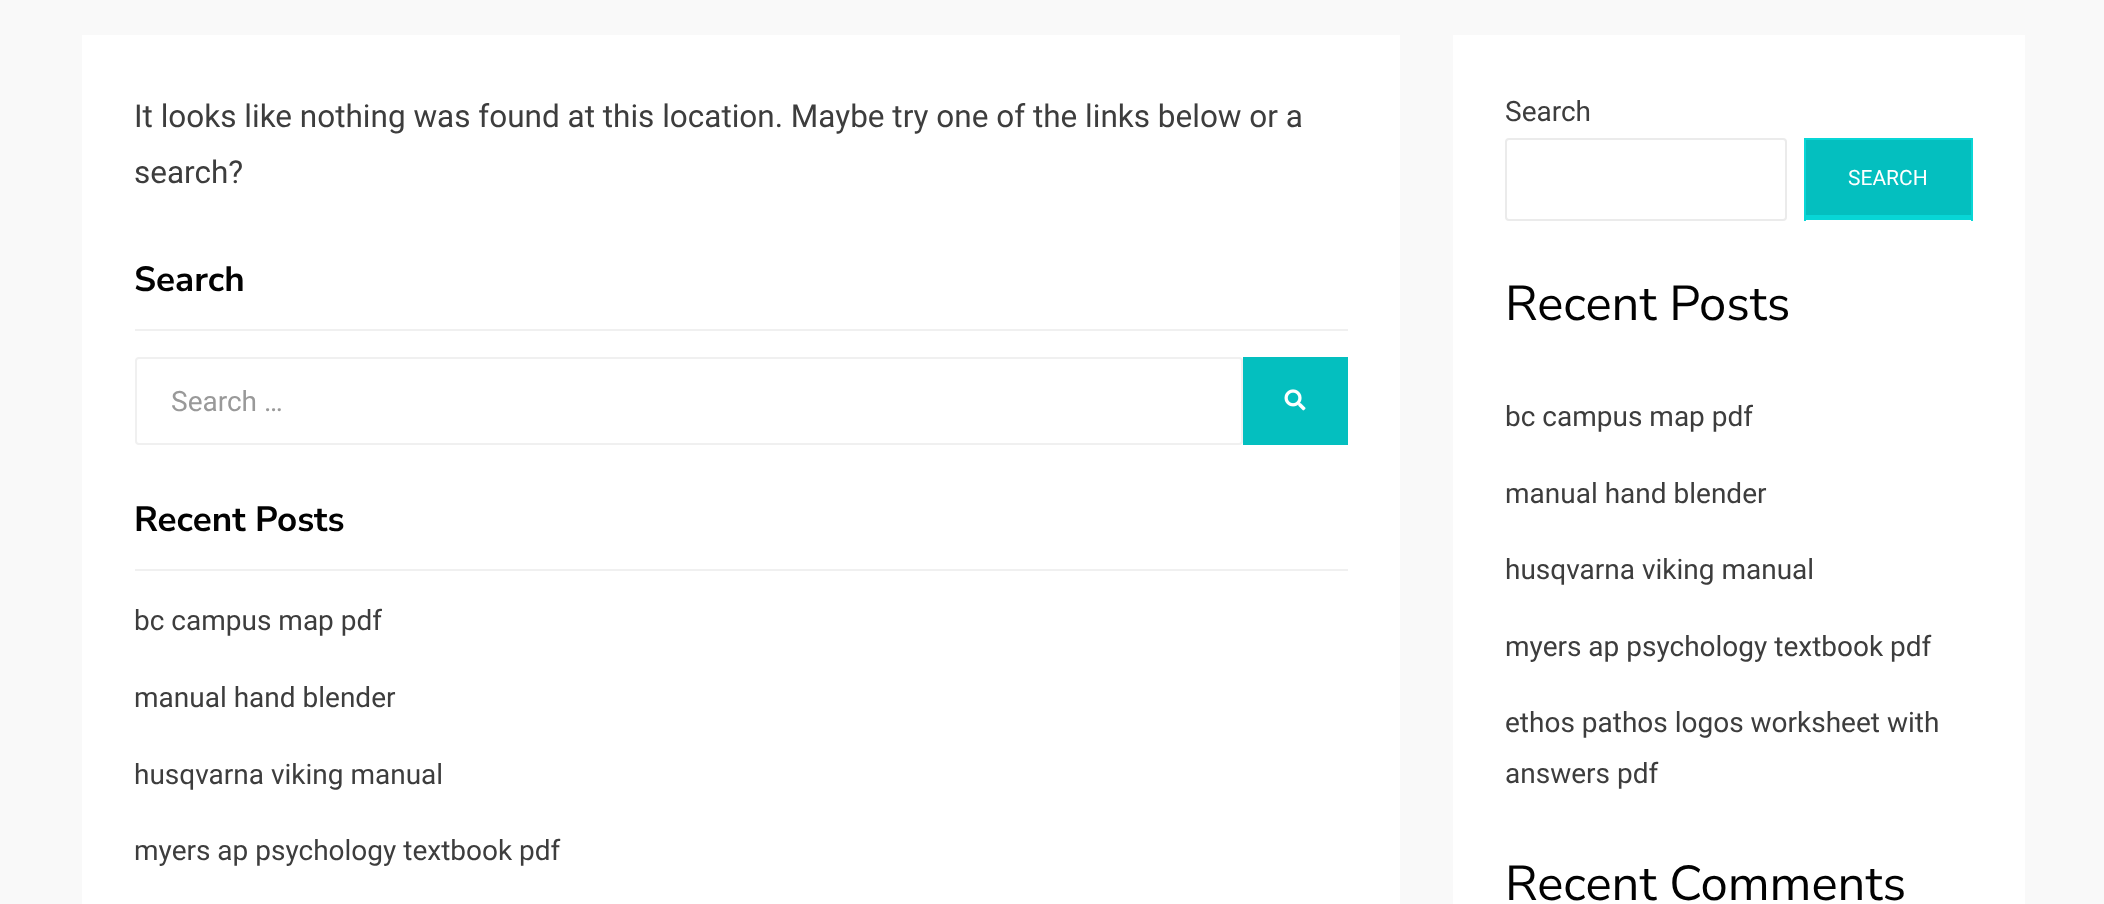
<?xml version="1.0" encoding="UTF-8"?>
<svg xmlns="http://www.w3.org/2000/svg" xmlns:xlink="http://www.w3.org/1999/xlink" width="2104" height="904">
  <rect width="100%" height="100%" fill="#f9f9f9" />
  <rect x="82" y="35" width="1318" height="869" fill="#ffffff" />
  <rect x="135" y="329" width="1213" height="2" fill="#f0f0f0" />
  <rect x="136" y="358" width="1106" height="86" rx="3" fill="none" stroke="#f0f0f0" stroke-width="2" />
  <rect x="1243" y="357" width="105" height="88" fill="#04bfbf" />
  <image x="1284" y="389" width="22" height="22" xlink:href="image1.png" />
  <rect x="135" y="569" width="1213" height="2" fill="#f0f0f0" />
  <rect x="1453" y="35" width="572" height="869" fill="#ffffff" />
  <rect x="1506" y="139" width="280" height="81" rx="3" fill="none" stroke="#ebebeb" stroke-width="2" />
  <rect x="1806" y="140" width="165" height="75" fill="#04bfbf" />
  <rect x="1804" y="138" width="168" height="2" fill="#08d6d6" />
  <rect x="1971" y="138" width="2" height="83" fill="#08d6d6" />
  <rect x="1804" y="215" width="168" height="5" fill="#08d6d6" />
  <rect x="1804" y="138" width="2" height="83" fill="#08d6d6" />
  <text x="134" y="127" style="font-family: Roboto; font-size: 31.5px; fill: #3d3d3d">It looks like nothing was found at this location. Maybe try one of the links below or a</text>
  <text x="134" y="183" style="font-family: Roboto; font-size: 31.5px; fill: #3d3d3d">search?</text>
  <text x="134" y="291" style="font-family: Nunito Sans; font-size: 35px; font-weight: bold; fill: #020202">Search</text>
  <text x="171" y="411" style="font-family: Roboto; font-size: 28px; fill: #999999">Search …</text>
  <text x="134" y="531" style="font-family: Nunito Sans; font-size: 35px; font-weight: bold; fill: #020202">Recent Posts</text>
  <text x="134" y="630" style="font-family: Roboto; font-size: 28px; fill: #3d3d3d">bc campus map pdf</text>
  <text x="134" y="707" style="font-family: Roboto; font-size: 28px; fill: #3d3d3d">manual hand blender</text>
  <text x="134" y="784" style="font-family: Roboto; font-size: 28px; fill: #3d3d3d">husqvarna viking manual</text>
  <text x="134" y="860" style="font-family: Roboto; font-size: 28px; fill: #3d3d3d">myers ap psychology textbook pdf</text>
  <text x="1505" y="121" style="font-family: Roboto; font-size: 28px; fill: #3d3d3d">Search</text>
  <text x="1848" y="185" style="font-family: Roboto; font-size: 21px; fill: #ffffff">SEARCH</text>
  <text x="1505" y="320" style="font-family: Nunito Sans; font-size: 49px; fill: #020202">Recent Posts</text>
  <text x="1505" y="426" style="font-family: Roboto; font-size: 28px; fill: #3d3d3d">bc campus map pdf</text>
  <text x="1505" y="503" style="font-family: Roboto; font-size: 28px; fill: #3d3d3d">manual hand blender</text>
  <text x="1505" y="579" style="font-family: Roboto; font-size: 28px; fill: #3d3d3d">husqvarna viking manual</text>
  <text x="1505" y="656" style="font-family: Roboto; font-size: 28px; fill: #3d3d3d">myers ap psychology textbook pdf</text>
  <text x="1505" y="732" style="font-family: Roboto; font-size: 28px; fill: #3d3d3d">ethos pathos logos worksheet with</text>
  <text x="1505" y="783" style="font-family: Roboto; font-size: 28px; fill: #3d3d3d">answers pdf</text>
  <text x="1505" y="900" style="font-family: Nunito Sans; font-size: 49px; fill: #020202">Recent Comments</text>
</svg>
